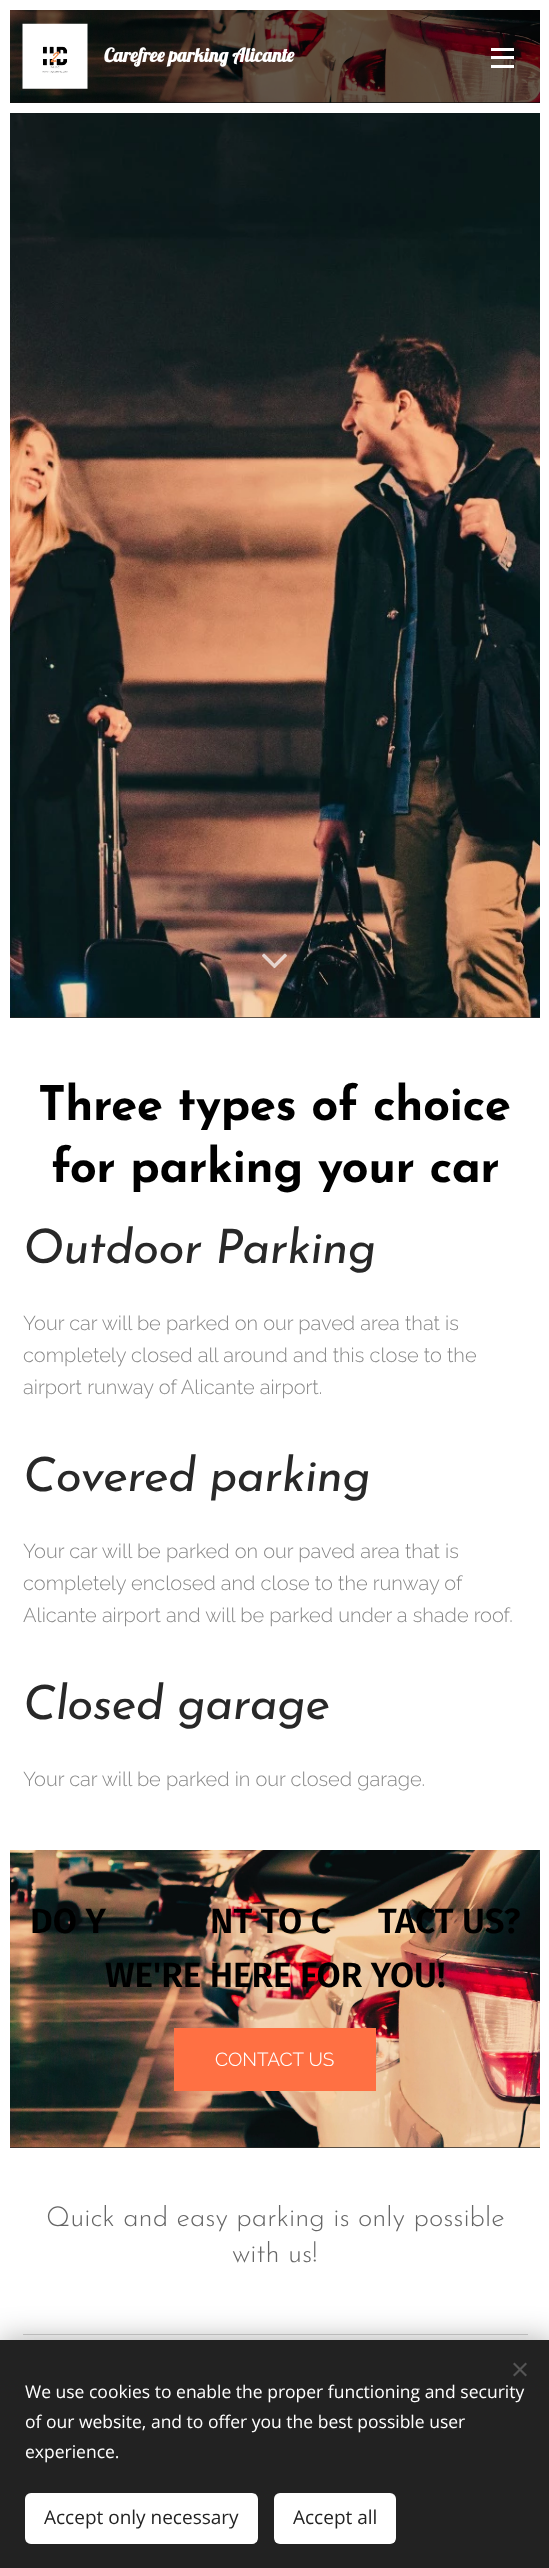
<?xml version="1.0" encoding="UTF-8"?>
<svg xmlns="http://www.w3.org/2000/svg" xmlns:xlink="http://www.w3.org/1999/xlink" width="549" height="2568">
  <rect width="100%" height="100%" fill="#ffffff" />
  <rect x="10" y="102" width="530" height="1" fill="#101010" />
  <image x="10" y="10" width="530" height="93" xlink:href="image1.png" />
  <image x="22" y="23" width="66" height="66" xlink:href="image2.png" />
  <rect x="491" y="56" width="23" height="3" fill="#ffffff" />
  <rect x="491" y="48" width="23" height="3" fill="#ffffff" />
  <rect x="491" y="65" width="23" height="3" fill="#ffffff" />
  <rect x="10" y="1017" width="530" height="1" fill="#272727" />
  <image x="10" y="113" width="530" height="905" xlink:href="image3.png" />
  <image x="262" y="953" width="25" height="16" xlink:href="image4.png" />
  <rect x="10" y="2147" width="530" height="1" fill="#272727" />
  <image x="10" y="1850" width="530" height="298" xlink:href="image5.png" />
  <rect x="174" y="2028" width="202" height="63" fill="#ff7043" />
  <rect x="23" y="2334" width="505" height="1" fill="#d4d4d4" />
  <rect y="2340" width="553" height="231" fill="#000000" fill-opacity="0.33" filter="blur(15.5px)" />
  <rect y="2340" width="549" height="228" fill="#222222" />
  <path d="M 513 2375 l 12.5 -12.5 l 1.5 1.5 l -12.5 12.5 z" fill="#555555" />
  <path d="M 514.5 2362.5 l 12.5 12.5 l -1.5 1.5 l -12.5 -12.5 z" fill="#555555" />
  <rect x="25" y="2493" width="233" height="51" rx="6" fill="#ffffff" />
  <rect x="274" y="2493" width="122" height="51" rx="6" fill="#ffffff" />
  <text x="104" y="62" style="font-family: Lobster; font-size: 19px; font-weight: bold; fill: #ffffff">Carefree parking Alicante</text>
  <text x="38" y="1120" style="font-family: Josefin Sans; font-size: 47.5px; font-weight: bold; letter-spacing: -0.5px; fill: #000000">Three types of choice</text>
  <text x="51" y="1182" style="font-family: Josefin Sans; font-size: 47.5px; font-weight: bold; letter-spacing: -0.5px; fill: #000000">for parking your car</text>
  <text x="23" y="1263" style="font-family: Josefin Sans; font-size: 47.5px; font-style: italic; letter-spacing: -0.5px; fill: #282828">Outdoor Parking</text>
  <text x="23" y="1330" style="font-family: Raleway; font-size: 20px; font-weight: 300; fill: #888888">Your car will be parked on our paved area that is</text>
  <text x="23" y="1362" style="font-family: Raleway; font-size: 20px; font-weight: 300; fill: #888888">completely closed all around and this close to the</text>
  <text x="23" y="1394" style="font-family: Raleway; font-size: 20px; font-weight: 300; fill: #888888">airport runway of Alicante airport.</text>
  <text x="23" y="1491" style="font-family: Josefin Sans; font-size: 47.5px; font-style: italic; letter-spacing: -0.5px; fill: #282828">Covered parking</text>
  <text x="23" y="1558" style="font-family: Raleway; font-size: 20px; font-weight: 300; fill: #888888">Your car will be parked on our paved area that is</text>
  <text x="23" y="1590" style="font-family: Raleway; font-size: 20px; font-weight: 300; fill: #888888">completely enclosed and close to the runway of</text>
  <text x="23" y="1622" style="font-family: Raleway; font-size: 20px; font-weight: 300; fill: #888888">Alicante airport and will be parked under a shade roof.</text>
  <text x="23" y="1719" style="font-family: Josefin Sans; font-size: 47.5px; font-style: italic; letter-spacing: -0.5px; fill: #282828">Closed garage</text>
  <text x="23" y="1786" style="font-family: Raleway; font-size: 20px; font-weight: 300; fill: #888888">Your car will be parked in our closed garage.</text>
  <text x="30" y="1933" style="font-family: Fira Sans; font-size: 35px; font-weight: 600; fill: #000000">DO Y</text>
  <text x="210" y="1933" style="font-family: Fira Sans; font-size: 35px; font-weight: 600; fill: #000000">NT TO C</text>
  <text x="378" y="1933" style="font-family: Fira Sans; font-size: 35px; font-weight: 600; fill: #000000">TACT US?</text>
  <text x="105" y="1987" style="font-family: Fira Sans; font-size: 35px; font-weight: 600; fill: #000000">WE'RE HERE FOR YOU!</text>
  <text x="215" y="2066" style="font-family: 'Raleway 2'; font-size: 19px; font-weight: 300; fill: #ffffff">CONTACT US</text>
  <text x="46" y="2226" style="font-family: Josefin Sans; font-size: 27.5px; font-weight: 300; fill: #666666">Quick and easy parking is only possible</text>
  <text x="232" y="2262" style="font-family: Josefin Sans; font-size: 27.5px; font-weight: 300; fill: #666666">with us!</text>
  <text x="25" y="2398" style="font-family: Open Sans; font-size: 17.5px; fill: #ffffff">We use cookies to enable the proper functioning and security</text>
  <text x="25" y="2428" style="font-family: Open Sans; font-size: 17.5px; fill: #ffffff">of our website, and to offer you the best possible user</text>
  <text x="25" y="2458" style="font-family: Open Sans; font-size: 17.5px; fill: #ffffff">experience.</text>
  <text x="44" y="2524" style="font-family: Open Sans; font-size: 19px; fill: #222222">Accept only necessary</text>
  <text x="293" y="2524" style="font-family: Open Sans; font-size: 19px; fill: #222222">Accept all</text>
</svg>
